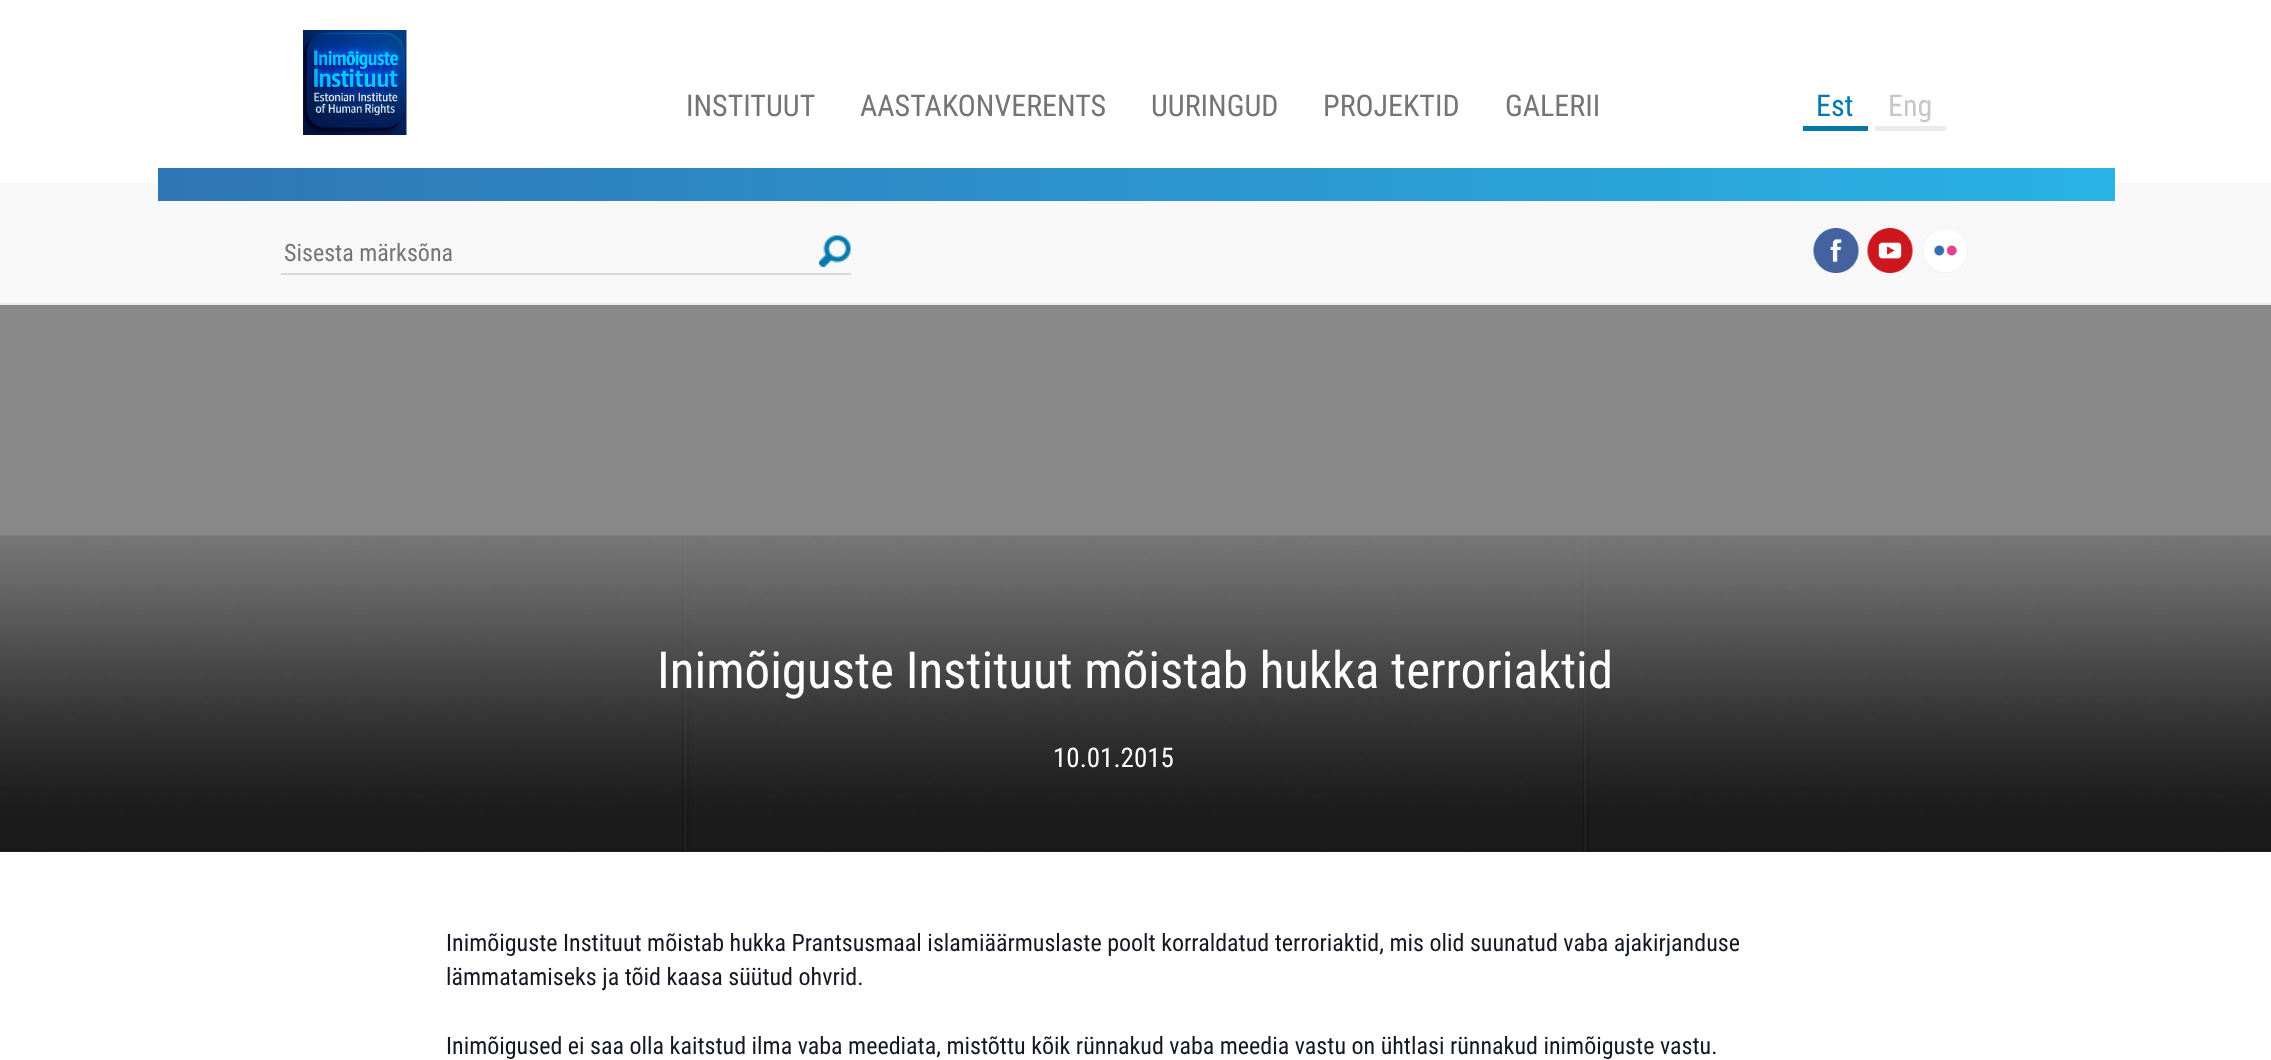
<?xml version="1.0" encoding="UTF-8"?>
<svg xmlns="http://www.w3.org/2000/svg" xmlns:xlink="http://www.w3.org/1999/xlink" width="2271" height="1060">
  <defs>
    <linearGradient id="g1" gradientUnits="userSpaceOnUse" x1="158" y1="185" x2="2115" y2="184"><stop offset="0" stop-color="#2f76b5" /><stop offset="1" stop-color="#29b3e5" /></linearGradient>
    <clipPath id="clip1"><rect y="305" width="2271" height="547" /></clipPath>
  </defs>
  <rect width="100%" height="100%" fill="#ffffff" />
  <image x="303" y="30" width="104" height="105" xlink:href="image1.png" />
  <rect x="1803" y="126" width="65" height="5" fill="#0079aa" />
  <rect x="1875" y="126" width="71" height="5" fill="#ebebeb" />
  <rect y="183" width="2271" height="120" fill="#f8f8f8" />
  <rect x="158" y="168" width="1957" height="33" fill="url(#g1)" />
  <rect y="303" width="2271" height="2" fill="#ebebeb" />
  <rect x="281" y="273" width="570" height="2" fill="#d7d7d7" />
  <image x="819" y="235" width="32" height="32" xlink:href="image2.png" />
  <image x="1813" y="228" width="46" height="45" xlink:href="image3.png" />
  <image x="1867" y="228" width="46" height="45" xlink:href="image4.png" />
  <image x="1923" y="228" width="45" height="45" xlink:href="image5.png" />
  <g clip-path="url(#clip1)">
    <path d="M 1514 -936 h -1514 v 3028 h 2271 v -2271 z m 0 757 v -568 l 568 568 z" fill="#888888" />
  </g>
  <image x="0" y="535" width="2271" height="317" xlink:href="image6.png" />
  <text x="686" y="116" style="font-family: Roboto Condensed; font-size: 30px; fill: #757575">INSTITUUT</text>
  <text x="860" y="116" style="font-family: Roboto Condensed; font-size: 30px; fill: #757575">AASTAKONVERENTS</text>
  <text x="1151" y="116" style="font-family: Roboto Condensed; font-size: 30px; fill: #757575">UURINGUD</text>
  <text x="1323" y="116" style="font-family: Roboto Condensed; font-size: 30px; fill: #757575">PROJEKTID</text>
  <text x="1505" y="116" style="font-family: Roboto Condensed; font-size: 30px; fill: #757575">GALERII</text>
  <text x="1816" y="116" style="font-family: Roboto Condensed; font-size: 30px; fill: #0079aa">Est</text>
  <text x="1888" y="116" style="font-family: Roboto Condensed; font-size: 30px; fill: #c7c7c7">Eng</text>
  <text x="284" y="261" style="font-family: Roboto Condensed; font-size: 24px; fill: #757575">Sisesta märksõna</text>
  <text x="657" y="688" style="font-family: Roboto Condensed; font-size: 51px; fill: #ffffff">Inimõiguste Instituut mõistab hukka terroriaktid</text>
  <text x="1053" y="767" style="font-family: Roboto Condensed; font-size: 27px; fill: #ffffff">10.01.2015</text>
  <text x="446" y="951" style="font-family: Roboto Condensed; font-size: 24px; fill: #141823">Inimõiguste Instituut mõistab hukka Prantsusmaal islamiäärmuslaste poolt korraldatud terroriaktid, mis olid suunatud vaba ajakirjanduse</text>
  <text x="446" y="985" style="font-family: Roboto Condensed; font-size: 24px; fill: #141823">lämmatamiseks ja tõid kaasa süütud ohvrid.</text>
  <text x="446" y="1054" style="font-family: Roboto Condensed; font-size: 24px; fill: #141823">Inimõigused ei saa olla kaitstud ilma vaba meediata, mistõttu kõik rünnakud vaba meedia vastu on ühtlasi rünnakud inimõiguste vastu.</text>
</svg>
